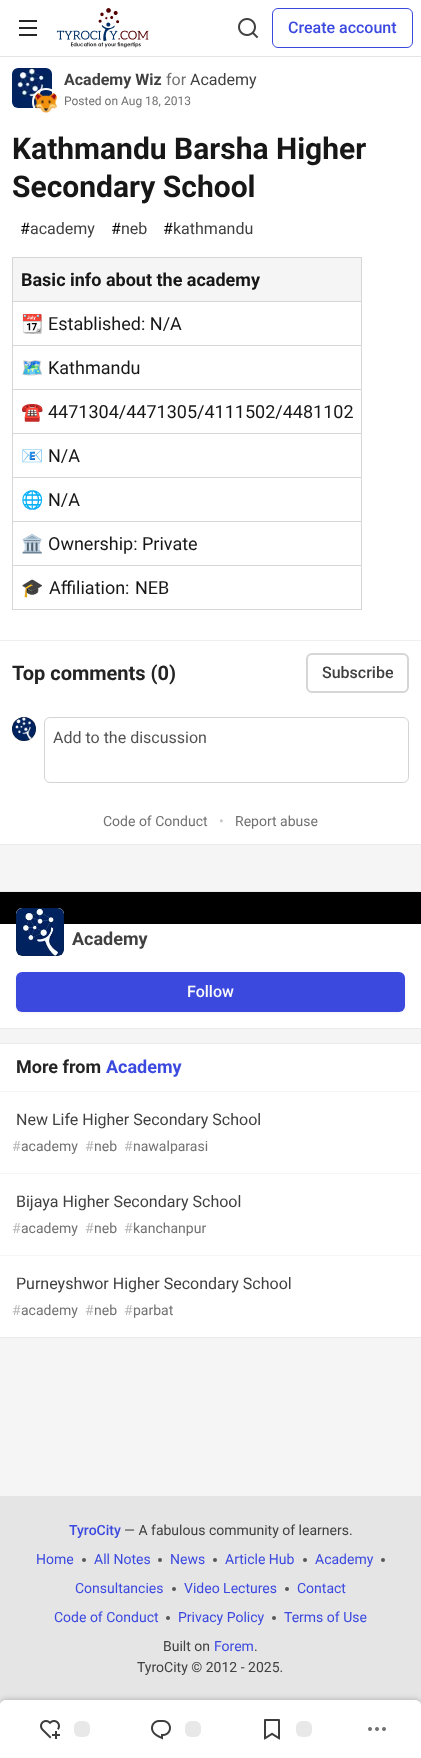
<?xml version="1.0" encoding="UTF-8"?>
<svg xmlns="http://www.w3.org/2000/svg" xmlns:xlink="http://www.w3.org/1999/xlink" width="421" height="1758">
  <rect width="100%" height="100%" fill="#f5f5f5" />
  <rect x="-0.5" y="55.5" width="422" height="789" fill="none" stroke="#eaeaea" />
  <rect y="56" width="421" height="788" fill="#ffffff" />
  <rect y="1" width="421" height="56" fill="#000000" fill-opacity="0.1" filter="blur(0.5px)" />
  <rect width="421" height="56" fill="#ffffff" />
  <image x="19" y="20" width="18" height="16" xlink:href="image1.png" />
  <image x="56" y="8" width="93" height="40" xlink:href="image2.png" />
  <image x="238" y="18" width="21" height="21" xlink:href="image3.png" />
  <rect x="272.5" y="8.5" width="140" height="39" rx="5.5" fill="none" stroke="#3b49df" />
  <image x="12" y="68" width="40" height="40" xlink:href="image4.png" />
  <circle cx="46" cy="102" r="13" fill="none" stroke="#ffffff" stroke-width="2" />
  <image x="35" y="92" width="22" height="21" xlink:href="image5.png" />
  <rect x="13" y="258" width="348" height="43" fill="#f5f5f5" />
  <rect x="12" y="257" width="350" height="1" fill="#d6d6d7" />
  <rect x="12" y="301" width="350" height="1" fill="#d6d6d7" />
  <rect x="12" y="345" width="350" height="1" fill="#d6d6d7" />
  <rect x="12" y="389" width="350" height="1" fill="#d6d6d7" />
  <rect x="12" y="433" width="350" height="1" fill="#d6d6d7" />
  <rect x="12" y="477" width="350" height="1" fill="#d6d6d7" />
  <rect x="12" y="521" width="350" height="1" fill="#d6d6d7" />
  <rect x="12" y="565" width="350" height="1" fill="#d6d6d7" />
  <rect x="361" y="565" width="1" height="45" fill="#d6d6d7" />
  <rect x="361" y="521" width="1" height="45" fill="#d6d6d7" />
  <rect x="361" y="477" width="1" height="45" fill="#d6d6d7" />
  <rect x="361" y="433" width="1" height="45" fill="#d6d6d7" />
  <rect x="361" y="389" width="1" height="45" fill="#d6d6d7" />
  <rect x="361" y="345" width="1" height="45" fill="#d6d6d7" />
  <rect x="361" y="301" width="1" height="45" fill="#d6d6d7" />
  <rect x="361" y="257" width="1" height="45" fill="#d6d6d7" />
  <rect x="12" y="609" width="350" height="1" fill="#d6d6d7" />
  <rect x="12" y="565" width="1" height="45" fill="#d6d6d7" />
  <rect x="12" y="521" width="1" height="45" fill="#d6d6d7" />
  <rect x="12" y="477" width="1" height="45" fill="#d6d6d7" />
  <rect x="12" y="433" width="1" height="45" fill="#d6d6d7" />
  <rect x="12" y="389" width="1" height="45" fill="#d6d6d7" />
  <rect x="12" y="345" width="1" height="45" fill="#d6d6d7" />
  <rect x="12" y="301" width="1" height="45" fill="#d6d6d7" />
  <rect x="12" y="257" width="1" height="45" fill="#d6d6d7" />
  <rect y="640" width="421" height="1" fill="#efefef" />
  <rect x="307" y="654" width="101" height="38" rx="5" fill="none" stroke="#d6d6d7" stroke-width="2" />
  <circle cx="24" cy="729" r="12" fill="#525252" />
  <image x="12" y="717" width="24" height="24" xlink:href="image6.png" />
  <circle cx="24" cy="729" r="11.5" fill="none" stroke="#171717" stroke-opacity="0.15" />
  <rect x="44.5" y="717.5" width="364" height="65" rx="5.5" fill="none" stroke="#d4d4d4" />
  <rect x="-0.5" y="891.5" width="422" height="137" fill="none" stroke="#eaeaea" />
  <rect y="924" width="421" height="104" fill="#ffffff" />
  <rect y="892" width="421" height="32" fill="#000000" />
  <rect x="16" y="908" width="48" height="48" rx="6" fill="#ffffff" />
  <image x="16" y="908" width="48" height="48" xlink:href="image7.png" />
  <rect x="16.5" y="908.5" width="47" height="47" rx="5.5" fill="none" stroke="#171717" stroke-opacity="0.15" />
  <rect x="16" y="973" width="389" height="40" rx="6" fill="#000000" fill-opacity="0.05" filter="blur(1.5px)" />
  <rect x="16" y="972" width="389" height="40" rx="6" fill="#3b49df" />
  <rect x="-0.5" y="1043.5" width="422" height="294" fill="none" stroke="#eaeaea" />
  <rect y="1044" width="421" height="293" fill="#ffffff" />
  <rect y="1091" width="421" height="1" fill="#f5f5f5" />
  <rect y="1173" width="421" height="1" fill="#f5f5f5" />
  <rect y="1255" width="421" height="1" fill="#f5f5f5" />
  <rect y="1496" width="421" height="206" fill="#e5e5e5" />
  <rect y="1699" width="421" height="58" rx="6" fill="#000000" fill-opacity="0.2" filter="blur(2.5px)" />
  <path d="M 6 1700 h 409 c 3.5 0 6 2.5 6 6 v 52 h -421 v -52 c 0 -3.5 2.5 -6 6 -6 z" fill="#ffffff" />
  <image x="40" y="1720" width="20" height="19" xlink:href="image8.png" />
  <rect x="74" y="1721" width="16" height="16" rx="6" fill="#e8e8e8" />
  <image x="151" y="1720" width="20" height="20" xlink:href="image9.png" />
  <rect x="185" y="1721" width="16" height="16" rx="6" fill="#e8e8e8" />
  <image x="264" y="1719" width="16" height="21" xlink:href="image10.png" />
  <rect x="296" y="1721" width="16" height="16" rx="6" fill="#e8e8e8" />
  <image x="368" y="1727" width="18" height="4" xlink:href="image11.png" />
  <circle cx="84" cy="1560" r="2" fill="#575757" />
  <circle cx="160" cy="1560" r="2" fill="#575757" />
  <circle cx="215" cy="1560" r="2" fill="#575757" />
  <circle cx="305" cy="1560" r="2" fill="#575757" />
  <circle cx="383" cy="1560" r="2" fill="#575757" />
  <circle cx="174" cy="1589" r="2" fill="#575757" />
  <circle cx="287" cy="1589" r="2" fill="#575757" />
  <circle cx="168" cy="1618" r="2" fill="#575757" />
  <circle cx="274" cy="1618" r="2" fill="#575757" />
  <text x="288" y="33" style="font-family: Roboto; font-size: 16px; font-weight: 500; fill: #3b49df">Create account</text>
  <text x="64" y="85" style="font-family: Roboto; font-size: 16px; font-weight: bold; fill: #404040">Academy Wiz</text>
  <text x="166" y="85" style="font-family: Roboto; font-size: 16px; fill: #717171">for</text>
  <text x="190" y="85" style="font-family: Roboto; font-size: 16px; fill: #404040">Academy</text>
  <text x="64" y="105" style="font-family: Roboto; font-size: 12px; fill: #717171">Posted on Aug 18, 2013</text>
  <text x="12" y="159" style="font-family: Roboto; font-size: 30px; font-weight: bold; fill: #171717">Kathmandu Barsha Higher</text>
  <text x="12" y="197" style="font-family: Roboto; font-size: 30px; font-weight: bold; fill: #171717">Secondary School</text>
  <text x="20" y="234" style="font-family: Roboto; font-size: 16px; fill: #000000">#</text>
  <text x="30" y="234" style="font-family: Roboto; font-size: 16px; fill: #404040">academy</text>
  <text x="111" y="234" style="font-family: Roboto; font-size: 16px; fill: #000000">#</text>
  <text x="121" y="234" style="font-family: Roboto; font-size: 16px; fill: #404040">neb</text>
  <text x="163" y="234" style="font-family: Roboto; font-size: 16px; fill: #000000">#</text>
  <text x="173" y="234" style="font-family: Roboto; font-size: 16px; fill: #404040">kathmandu</text>
  <text x="21" y="286" style="font-family: Roboto; font-size: 18px; font-weight: bold; fill: #171717">Basic info about the academy</text>
  <text x="21" y="330" style="font-family: Noto Color Emoji; font-size: 18px; fill: #171717">📆</text>
  <text x="48" y="330" style="font-family: Roboto; font-size: 18px; fill: #171717">Established: N/A</text>
  <text x="21" y="374" style="font-family: Noto Color Emoji; font-size: 18px; fill: #171717">🗺️</text>
  <text x="48" y="374" style="font-family: Roboto; font-size: 18px; fill: #171717">Kathmandu</text>
  <text x="21" y="418" style="font-family: Noto Color Emoji; font-size: 18px; fill: #171717">☎️</text>
  <text x="48" y="418" style="font-family: Roboto; font-size: 18px; fill: #171717">4471304/4471305/4111502/4481102</text>
  <text x="21" y="462" style="font-family: Noto Color Emoji; font-size: 18px; fill: #171717">📧</text>
  <text x="48" y="462" style="font-family: Roboto; font-size: 18px; fill: #171717">N/A</text>
  <text x="21" y="506" style="font-family: Noto Color Emoji; font-size: 18px; fill: #171717">🌐</text>
  <text x="48" y="506" style="font-family: Roboto; font-size: 18px; fill: #171717">N/A</text>
  <text x="21" y="550" style="font-family: Noto Color Emoji; font-size: 18px; fill: #171717">🏛️</text>
  <text x="48" y="550" style="font-family: Roboto; font-size: 18px; fill: #171717">Ownership: Private</text>
  <text x="21" y="594" style="font-family: Noto Color Emoji; font-size: 18px; fill: #171717">🎓</text>
  <text x="49" y="594" word-spacing="1" style="font-family: Roboto; font-size: 18px; fill: #171717">Affiliation: NEB</text>
  <text x="12" y="680" style="font-family: Roboto; font-size: 20px; font-weight: bold; fill: #242424">Top comments (0)</text>
  <text x="322" y="678" style="font-family: Roboto; font-size: 16px; font-weight: 500; fill: #404040">Subscribe</text>
  <text x="53" y="743" style="font-family: Roboto; font-size: 16px; fill: #525252">Add to the discussion</text>
  <text x="103" y="826" style="font-family: Roboto; font-size: 14px; fill: #717171">Code of Conduct</text>
  <text x="219" y="826" style="font-family: Roboto; font-size: 14px; fill: #c5c5c5">•</text>
  <text x="235" y="826" style="font-family: Roboto; font-size: 14px; fill: #717171">Report abuse</text>
  <text x="72" y="945" style="font-family: Roboto; font-size: 18px; font-weight: bold; fill: #404040">Academy</text>
  <text x="187" y="997" style="font-family: Roboto; font-size: 16px; font-weight: 500; fill: #f9f9f9">Follow</text>
  <text x="16" y="1073" style="font-family: Roboto; font-size: 18px; font-weight: bold; fill: #242424">More from</text>
  <text x="106" y="1073" style="font-family: Roboto; font-size: 18px; font-weight: bold; fill: #3b49df">Academy</text>
  <text x="16" y="1125" style="font-family: Roboto; font-size: 16px; fill: #404040">New Life Higher Secondary School</text>
  <text x="12" y="1151" style="font-family: Roboto; font-size: 14px; fill: #b8b8b8">#</text>
  <text x="21" y="1151" style="font-family: Roboto; font-size: 14px; fill: #717171">academy</text>
  <text x="85" y="1151" style="font-family: Roboto; font-size: 14px; fill: #b8b8b8">#</text>
  <text x="94" y="1151" style="font-family: Roboto; font-size: 14px; fill: #717171">neb</text>
  <text x="124" y="1151" style="font-family: Roboto; font-size: 14px; fill: #b8b8b8">#</text>
  <text x="133" y="1151" style="font-family: Roboto; font-size: 14px; fill: #717171">nawalparasi</text>
  <text x="16" y="1207" style="font-family: Roboto; font-size: 16px; fill: #404040">Bijaya Higher Secondary School</text>
  <text x="12" y="1233" style="font-family: Roboto; font-size: 14px; fill: #b8b8b8">#</text>
  <text x="21" y="1233" style="font-family: Roboto; font-size: 14px; fill: #717171">academy</text>
  <text x="85" y="1233" style="font-family: Roboto; font-size: 14px; fill: #b8b8b8">#</text>
  <text x="94" y="1233" style="font-family: Roboto; font-size: 14px; fill: #717171">neb</text>
  <text x="124" y="1233" style="font-family: Roboto; font-size: 14px; fill: #b8b8b8">#</text>
  <text x="133" y="1233" style="font-family: Roboto; font-size: 14px; fill: #717171">kanchanpur</text>
  <text x="16" y="1289" style="font-family: Roboto; font-size: 16px; fill: #404040">Purneyshwor Higher Secondary School</text>
  <text x="12" y="1315" style="font-family: Roboto; font-size: 14px; fill: #b8b8b8">#</text>
  <text x="21" y="1315" style="font-family: Roboto; font-size: 14px; fill: #717171">academy</text>
  <text x="85" y="1315" style="font-family: Roboto; font-size: 14px; fill: #b8b8b8">#</text>
  <text x="94" y="1315" style="font-family: Roboto; font-size: 14px; fill: #717171">neb</text>
  <text x="124" y="1315" style="font-family: Roboto; font-size: 14px; fill: #b8b8b8">#</text>
  <text x="133" y="1315" style="font-family: Roboto; font-size: 14px; fill: #717171">parbat</text>
  <text x="69" y="1535" style="font-family: Roboto; font-size: 14px; font-weight: 500; fill: #3b49df">TyroCity</text>
  <text x="124" y="1535" style="font-family: Roboto; font-size: 14px; fill: #404040">— A fabulous community of learners.</text>
  <text x="36" y="1564" style="font-family: Roboto; font-size: 14px; fill: #3b49df">Home</text>
  <text x="94" y="1564" style="font-family: Roboto; font-size: 14px; fill: #3b49df">All Notes</text>
  <text x="170" y="1564" style="font-family: Roboto; font-size: 14px; fill: #3b49df">News</text>
  <text x="225" y="1564" style="font-family: Roboto; font-size: 14px; fill: #3b49df">Article Hub</text>
  <text x="315" y="1564" style="font-family: Roboto; font-size: 14px; fill: #3b49df">Academy</text>
  <text x="75" y="1593" style="font-family: Roboto; font-size: 14px; fill: #3b49df">Consultancies</text>
  <text x="184" y="1593" style="font-family: Roboto; font-size: 14px; fill: #3b49df">Video Lectures</text>
  <text x="297" y="1593" style="font-family: Roboto; font-size: 14px; fill: #3b49df">Contact</text>
  <text x="54" y="1622" style="font-family: Roboto; font-size: 14px; fill: #3b49df">Code of Conduct</text>
  <text x="178" y="1622" style="font-family: Roboto; font-size: 14px; fill: #3b49df">Privacy Policy</text>
  <text x="284" y="1622" style="font-family: Roboto; font-size: 14px; fill: #3b49df">Terms of Use</text>
  <text x="163" y="1651" style="font-family: Roboto; font-size: 14px; fill: #404040">Built on</text>
  <text x="214" y="1651" style="font-family: Roboto; font-size: 14px; fill: #3b49df">Forem</text>
  <text x="254" y="1651" style="font-family: Roboto; font-size: 14px; fill: #404040">.</text>
  <text x="137" y="1672" style="font-family: Roboto; font-size: 14px; fill: #404040">TyroCity © 2012 - 2025.</text>
</svg>
